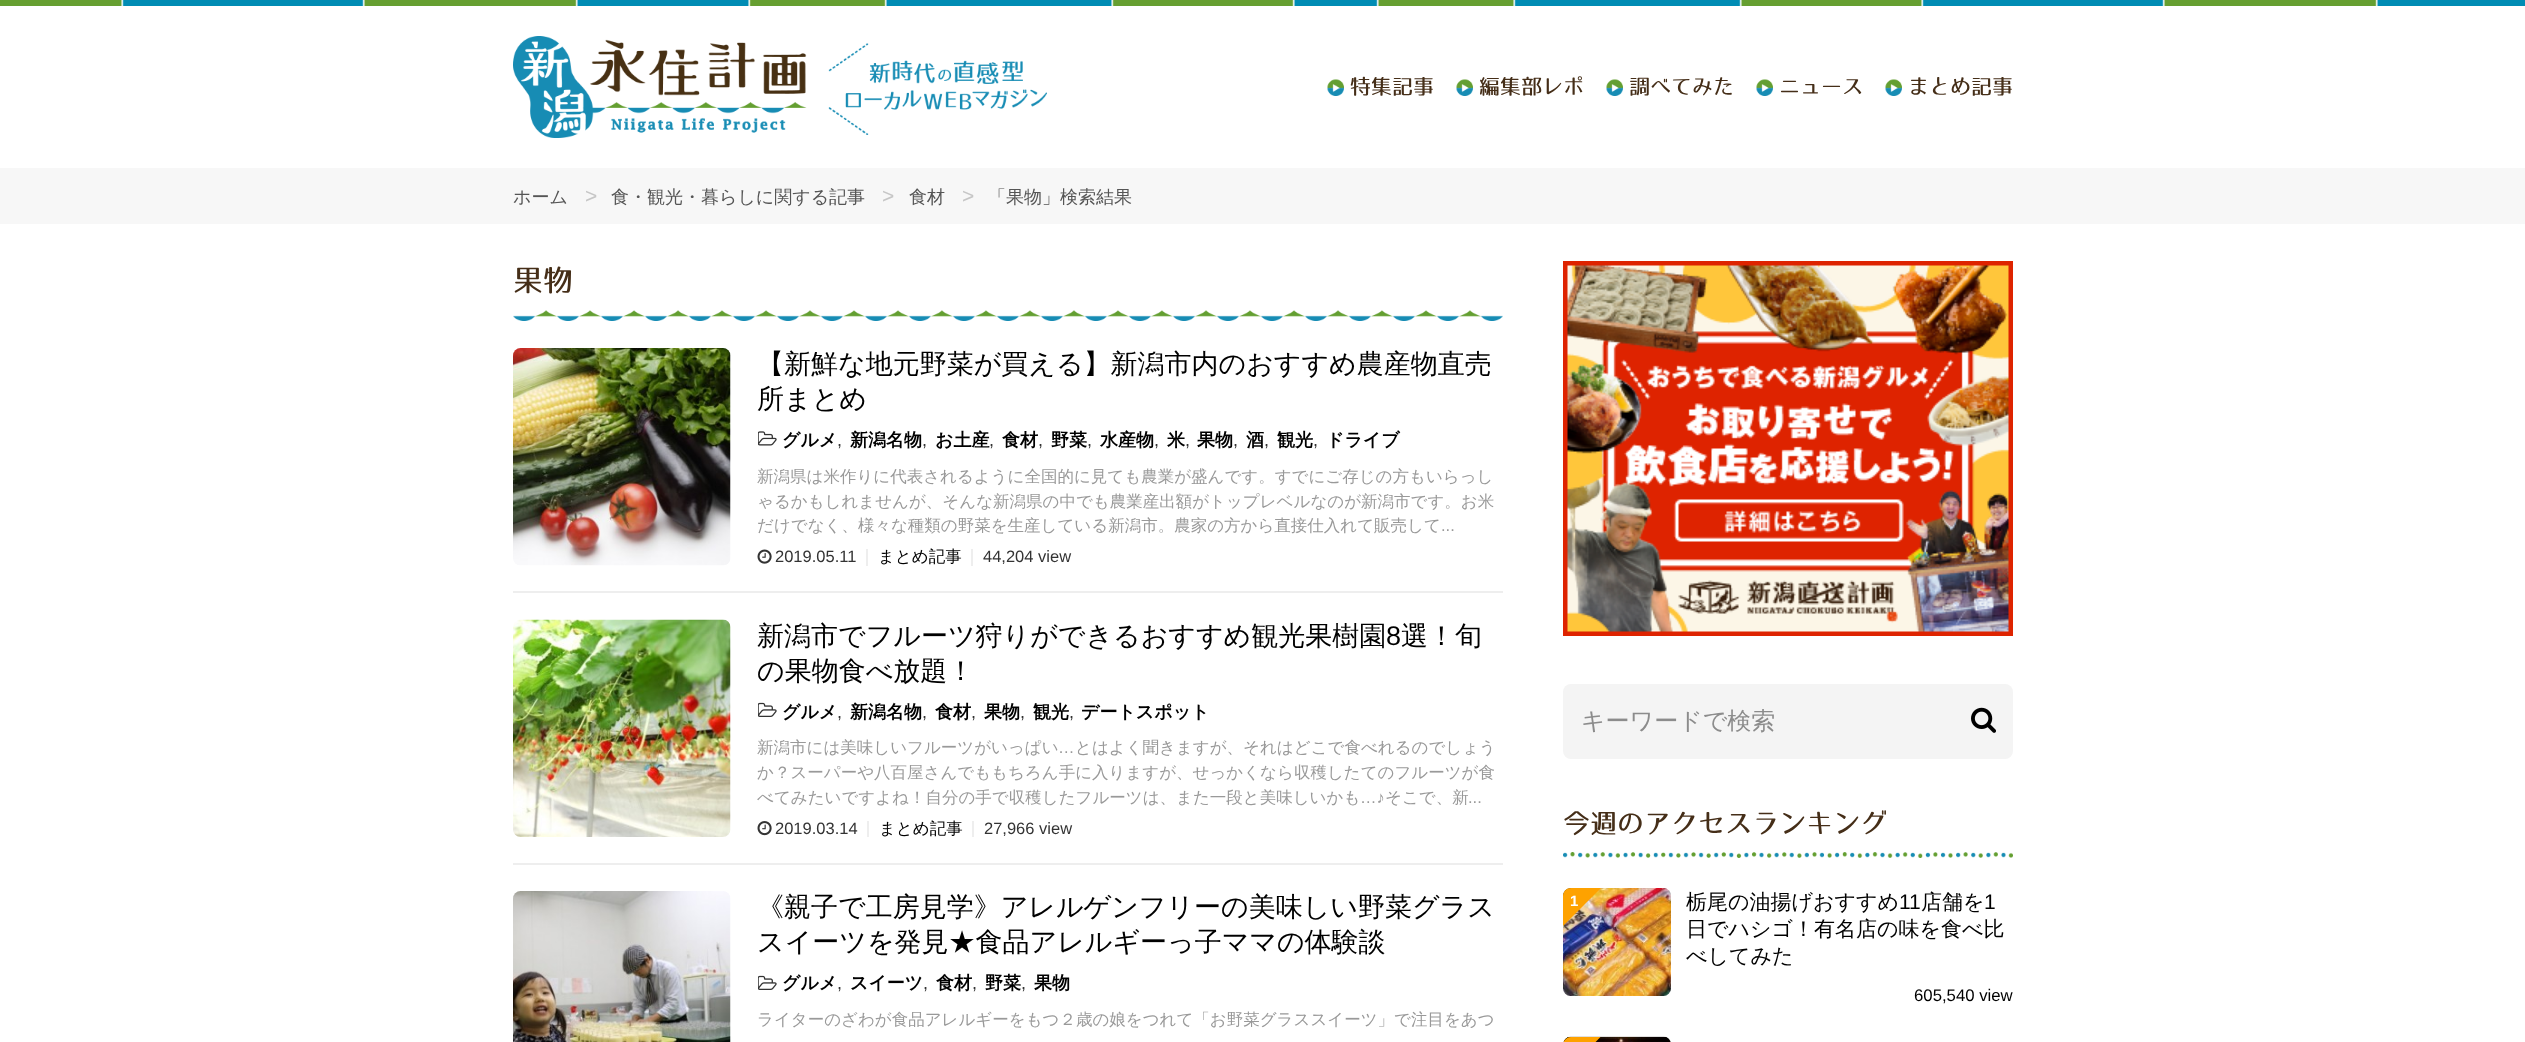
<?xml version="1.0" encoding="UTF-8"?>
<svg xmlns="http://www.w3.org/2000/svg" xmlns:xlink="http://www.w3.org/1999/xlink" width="2525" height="1042">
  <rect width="100%" height="100%" fill="#ffffff" />
  <image x="0" y="0" width="2525" height="6" xlink:href="image1.png" />
  <image x="513" y="36" width="534" height="102" xlink:href="image2.png" />
  <image x="1327" y="79" width="17" height="17" xlink:href="image3.png" />
  <image x="1456" y="79" width="17" height="17" xlink:href="image3.png" />
  <image x="1606" y="79" width="17" height="17" xlink:href="image4.png" />
  <image x="1756" y="79" width="17" height="17" xlink:href="image4.png" />
  <image x="1885" y="79" width="17" height="17" xlink:href="image3.png" />
  <rect y="168" width="2525" height="56" fill="#f7f7f7" />
  <image x="513" y="310" width="990" height="11" xlink:href="image5.png" />
  <rect x="513" y="591" width="990" height="2" fill="#eeeeee" />
  <image x="513" y="348" width="218" height="218" xlink:href="image6.png" />
  <image x="758" y="431" width="19" height="15" xlink:href="image7.png" />
  <rect x="866" y="549" width="2" height="17" fill="#eeeeee" />
  <image x="757" y="549" width="15" height="15" xlink:href="image8.png" />
  <rect x="971" y="549" width="2" height="17" fill="#eeeeee" />
  <rect x="513" y="863" width="990" height="2" fill="#eeeeee" />
  <image x="513" y="619" width="218" height="218" xlink:href="image9.png" />
  <image x="758" y="702" width="19" height="15" xlink:href="image10.png" />
  <rect x="867" y="821" width="2" height="16" fill="#eeeeee" />
  <image x="757" y="821" width="15" height="15" xlink:href="image11.png" />
  <rect x="972" y="821" width="2" height="16" fill="#eeeeee" />
  <image x="513" y="891" width="218" height="151" xlink:href="image12.png" />
  <image x="758" y="975" width="19" height="15" xlink:href="image10.png" />
  <image x="1563" y="261" width="450" height="375" xlink:href="image13.png" />
  <rect x="1563" y="684" width="450" height="75" rx="8" fill="#f4f4f4" />
  <image x="1971" y="707" width="25" height="26" xlink:href="image14.png" />
  <image x="1563" y="852" width="450" height="6" xlink:href="image15.png" />
  <image x="1563" y="888" width="108" height="108" xlink:href="image16.png" />
  <path d="M 1571 888 h 30 l -38 38 v -30 c 0 -4.5 3.5 -8 8 -8 z" fill="#fea200" />
  <image x="1563" y="1036" width="108" height="6" xlink:href="image17.png" />
  <path d="M 1571 1037 h 29.5 l -37.5 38 v -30 c 0 -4.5 3.5 -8 8 -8 z" fill="#fea200" />
  <text x="1350" y="94" style="font-family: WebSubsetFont; font-size: 21px; fill: #452e18">特集記事</text>
  <text x="1479" y="94" style="font-family: WebSubsetFont; font-size: 21px; fill: #452e18">編集部レポ</text>
  <text x="1629" y="94" style="font-family: WebSubsetFont; font-size: 21px; fill: #452e18">調べてみた</text>
  <text x="1779" y="94" style="font-family: WebSubsetFont; font-size: 21px; fill: #452e18">ニュース</text>
  <text x="1908" y="94" style="font-family: WebSubsetFont; font-size: 21px; fill: #452e18">まとめ記事</text>
  <text x="513" y="203" style="font-family: WenQuanYi Zen Hei; font-size: 18px; font-weight: 500; fill: #555555">ホーム</text>
  <text x="585" y="203" style="font-family: Liberation Sans; font-size: 21px; fill: #c6c6c6">&gt;</text>
  <text x="611" y="203" style="font-family: WenQuanYi Zen Hei; font-size: 18px; font-weight: 500; fill: #555555">食・観光・暮らしに関する記事</text>
  <text x="882" y="203" style="font-family: Liberation Sans; font-size: 21px; fill: #c6c6c6">&gt;</text>
  <text x="909" y="203" style="font-family: WenQuanYi Zen Hei; font-size: 18px; font-weight: 500; fill: #555555">食材</text>
  <text x="962" y="203" style="font-family: Liberation Sans; font-size: 21px; fill: #c6c6c6">&gt;</text>
  <text x="988" y="203" style="font-family: WenQuanYi Zen Hei; font-size: 18px; font-weight: 500; fill: #555555">「果物」検索結果</text>
  <text x="513" y="291" style="font-family: WebSubsetFont; font-size: 30px; fill: #452e18">果物</text>
  <text x="757" y="373" style="font-family: WenQuanYi Zen Hei; font-size: 27px; font-weight: 500; fill: #000000">【新鮮な地元野菜が買える】新潟市内のおすすめ農産物直売</text>
  <text x="757" y="408" style="font-family: WenQuanYi Zen Hei; font-size: 27px; font-weight: 500; fill: #000000">所まとめ</text>
  <text x="782" y="446" style="font-family: WenQuanYi Zen Hei; font-size: 18px; font-weight: bold; fill: #000000">グルメ</text>
  <text x="837" y="446" style="font-family: Liberation Sans; font-size: 18px; letter-spacing: 2px; fill: #333333">,</text>
  <text x="850" y="446" style="font-family: WenQuanYi Zen Hei; font-size: 18px; font-weight: bold; fill: #000000">新潟名物</text>
  <text x="922" y="446" style="font-family: Liberation Sans; font-size: 18px; letter-spacing: 2px; fill: #333333">,</text>
  <text x="935" y="446" style="font-family: WenQuanYi Zen Hei; font-size: 18px; font-weight: bold; fill: #000000">お土産</text>
  <text x="989" y="446" style="font-family: Liberation Sans; font-size: 18px; letter-spacing: 2px; fill: #333333">,</text>
  <text x="1002" y="446" style="font-family: WenQuanYi Zen Hei; font-size: 18px; font-weight: bold; fill: #000000">食材</text>
  <text x="1038" y="446" style="font-family: Liberation Sans; font-size: 18px; letter-spacing: 2px; fill: #333333">,</text>
  <text x="1051" y="446" style="font-family: WenQuanYi Zen Hei; font-size: 18px; font-weight: bold; fill: #000000">野菜</text>
  <text x="1087" y="446" style="font-family: Liberation Sans; font-size: 18px; letter-spacing: 2px; fill: #333333">,</text>
  <text x="1100" y="446" style="font-family: WenQuanYi Zen Hei; font-size: 18px; font-weight: bold; fill: #000000">水産物</text>
  <text x="1154" y="446" style="font-family: Liberation Sans; font-size: 18px; letter-spacing: 2px; fill: #333333">,</text>
  <text x="1167" y="446" style="font-family: WenQuanYi Zen Hei; font-size: 18px; font-weight: bold; fill: #000000">米</text>
  <text x="1185" y="446" style="font-family: Liberation Sans; font-size: 18px; letter-spacing: 2px; fill: #333333">,</text>
  <text x="1197" y="446" style="font-family: WenQuanYi Zen Hei; font-size: 18px; font-weight: bold; fill: #000000">果物</text>
  <text x="1233" y="446" style="font-family: Liberation Sans; font-size: 18px; letter-spacing: 2px; fill: #333333">,</text>
  <text x="1246" y="446" style="font-family: WenQuanYi Zen Hei; font-size: 18px; font-weight: bold; fill: #000000">酒</text>
  <text x="1264" y="446" style="font-family: Liberation Sans; font-size: 18px; letter-spacing: 2px; fill: #333333">,</text>
  <text x="1277" y="446" style="font-family: WenQuanYi Zen Hei; font-size: 18px; font-weight: bold; fill: #000000">観光</text>
  <text x="1313" y="446" style="font-family: Liberation Sans; font-size: 18px; letter-spacing: 2px; fill: #333333">,</text>
  <text x="1326" y="446" style="font-family: WenQuanYi Zen Hei; font-size: 18px; font-weight: bold; fill: #000000">ドライブ</text>
  <text x="757" y="482" style="font-family: WenQuanYi Zen Hei; font-size: 16.5px; font-weight: 500; fill: #999999">新潟県は米作りに代表されるように全国的に見ても農業が盛んです。すでにご存じの方もいらっし</text>
  <text x="757" y="507" style="font-family: WenQuanYi Zen Hei; font-size: 16.5px; font-weight: 500; fill: #999999">ゃるかもしれませんが、そんな新潟県の中でも農業産出額がトップレベルなのが新潟市です。お米</text>
  <text x="757" y="531" style="font-family: WenQuanYi Zen Hei; font-size: 16.5px; font-weight: 500; fill: #999999">だけでなく、様々な種類の野菜を生産している新潟市。農家の方から直接仕入れて販売して</text>
  <text x="1441" y="531" style="font-family: Liberation Sans; font-size: 16.5px; fill: #999999">...</text>
  <text x="775" y="562" style="font-family: Liberation Sans; font-size: 16.5px; fill: #333333">2019.05.11</text>
  <text x="878" y="562" style="font-family: WenQuanYi Zen Hei; font-size: 16.5px; font-weight: 500; fill: #000000">まとめ記事</text>
  <text x="983" y="562" style="font-family: Liberation Sans; font-size: 16.5px; fill: #333333">44,204 view</text>
  <text x="757" y="645" style="font-family: WenQuanYi Zen Hei; font-size: 27px; font-weight: 500; fill: #000000">新潟市でフルーツ狩りができるおすすめ観光果樹園</text>
  <text x="1386" y="645" style="font-family: Liberation Sans; font-size: 27px; fill: #000000">8</text>
  <text x="1401" y="645" style="font-family: WenQuanYi Zen Hei; font-size: 27px; font-weight: 500; fill: #000000">選！旬</text>
  <text x="757" y="680" style="font-family: WenQuanYi Zen Hei; font-size: 27px; font-weight: 500; fill: #000000">の果物食べ放題！</text>
  <text x="782" y="718" style="font-family: WenQuanYi Zen Hei; font-size: 18px; font-weight: bold; fill: #000000">グルメ</text>
  <text x="837" y="718" style="font-family: Liberation Sans; font-size: 18px; letter-spacing: 2px; fill: #333333">,</text>
  <text x="850" y="718" style="font-family: WenQuanYi Zen Hei; font-size: 18px; font-weight: bold; fill: #000000">新潟名物</text>
  <text x="922" y="718" style="font-family: Liberation Sans; font-size: 18px; letter-spacing: 2px; fill: #333333">,</text>
  <text x="935" y="718" style="font-family: WenQuanYi Zen Hei; font-size: 18px; font-weight: bold; fill: #000000">食材</text>
  <text x="971" y="718" style="font-family: Liberation Sans; font-size: 18px; letter-spacing: 2px; fill: #333333">,</text>
  <text x="984" y="718" style="font-family: WenQuanYi Zen Hei; font-size: 18px; font-weight: bold; fill: #000000">果物</text>
  <text x="1020" y="718" style="font-family: Liberation Sans; font-size: 18px; letter-spacing: 2px; fill: #333333">,</text>
  <text x="1033" y="718" style="font-family: WenQuanYi Zen Hei; font-size: 18px; font-weight: bold; fill: #000000">観光</text>
  <text x="1069" y="718" style="font-family: Liberation Sans; font-size: 18px; letter-spacing: 2px; fill: #333333">,</text>
  <text x="1081" y="718" style="font-family: WenQuanYi Zen Hei; font-size: 18px; font-weight: bold; fill: #000000">デートスポット</text>
  <text x="757" y="753" style="font-family: WenQuanYi Zen Hei; font-size: 16.5px; font-weight: 500; fill: #999999">新潟市には美味しいフルーツがいっぱい</text>
  <text x="1058" y="753" style="font-family: Liberation Sans; font-size: 16.5px; fill: #999999">…</text>
  <text x="1075" y="753" style="font-family: WenQuanYi Zen Hei; font-size: 16.5px; font-weight: 500; fill: #999999">とはよく聞きますが、それはどこで食べれるのでしょう</text>
  <text x="757" y="778" style="font-family: WenQuanYi Zen Hei; font-size: 16.5px; font-weight: 500; fill: #999999">か？スーパーや八百屋さんでももちろん手に入りますが、せっかくなら収穫したてのフルーツが食</text>
  <text x="757" y="803" style="font-family: WenQuanYi Zen Hei; font-size: 16.5px; font-weight: 500; fill: #999999">べてみたいですよね！自分の手で収穫したフルーツは、また一段と美味しいかも</text>
  <text x="1360" y="803" style="font-family: Liberation Sans; font-size: 16.5px; fill: #999999">…♪</text>
  <text x="1385" y="803" style="font-family: WenQuanYi Zen Hei; font-size: 16.5px; font-weight: 500; fill: #999999">そこで、新</text>
  <text x="1468" y="803" style="font-family: Liberation Sans; font-size: 16.5px; fill: #999999">...</text>
  <text x="775" y="834" style="font-family: Liberation Sans; font-size: 16.5px; fill: #333333">2019.03.14</text>
  <text x="879" y="834" style="font-family: WenQuanYi Zen Hei; font-size: 16.5px; font-weight: 500; fill: #000000">まとめ記事</text>
  <text x="984" y="834" style="font-family: Liberation Sans; font-size: 16.5px; fill: #333333">27,966 view</text>
  <text x="757" y="916" style="font-family: WenQuanYi Zen Hei; font-size: 27px; font-weight: 500; fill: #000000">《親子で工房見学》アレルゲンフリーの美味しい野菜グラス</text>
  <text x="757" y="951" style="font-family: WenQuanYi Zen Hei; font-size: 27px; font-weight: 500; fill: #000000">スイーツを発見★食品アレルギーっ子ママの体験談</text>
  <text x="782" y="989" style="font-family: WenQuanYi Zen Hei; font-size: 18px; font-weight: bold; fill: #000000">グルメ</text>
  <text x="837" y="989" style="font-family: Liberation Sans; font-size: 18px; letter-spacing: 2px; fill: #333333">,</text>
  <text x="850" y="989" style="font-family: WenQuanYi Zen Hei; font-size: 18px; font-weight: bold; fill: #000000">スイーツ</text>
  <text x="923" y="989" style="font-family: Liberation Sans; font-size: 18px; letter-spacing: 2px; fill: #333333">,</text>
  <text x="936" y="989" style="font-family: WenQuanYi Zen Hei; font-size: 18px; font-weight: bold; fill: #000000">食材</text>
  <text x="972" y="989" style="font-family: Liberation Sans; font-size: 18px; letter-spacing: 2px; fill: #333333">,</text>
  <text x="985" y="989" style="font-family: WenQuanYi Zen Hei; font-size: 18px; font-weight: bold; fill: #000000">野菜</text>
  <text x="1021" y="989" style="font-family: Liberation Sans; font-size: 18px; letter-spacing: 2px; fill: #333333">,</text>
  <text x="1034" y="989" style="font-family: WenQuanYi Zen Hei; font-size: 18px; font-weight: bold; fill: #000000">果物</text>
  <text x="757" y="1025" style="font-family: WenQuanYi Zen Hei; font-size: 16.5px; font-weight: 500; fill: #999999">ライターのざわが食品アレルギーをもつ２歳の娘をつれて「お野菜グラススイーツ」で注目をあつ</text>
  <text x="1581" y="729" style="font-family: WenQuanYi Zen Hei; font-size: 24px; font-weight: 500; fill: #8c8c8c">キーワードで検索</text>
  <text x="1563" y="833" style="font-family: WebSubsetFont; font-size: 27px; fill: #452e18">今週のアクセスランキング</text>
  <text x="1570" y="906" style="font-family: Liberation Sans; font-size: 15px; font-weight: bold; fill: #ffffff">1</text>
  <text x="1686" y="909" style="font-family: WenQuanYi Zen Hei; font-size: 21px; font-weight: 500; fill: #000000">栃尾の油揚げおすすめ</text>
  <text x="1899" y="909" style="font-family: Liberation Sans; font-size: 21px; fill: #000000">11</text>
  <text x="1921" y="909" style="font-family: WenQuanYi Zen Hei; font-size: 21px; font-weight: 500; fill: #000000">店舗を</text>
  <text x="1984" y="909" style="font-family: Liberation Sans; font-size: 21px; fill: #000000">1</text>
  <text x="1686" y="936" style="font-family: WenQuanYi Zen Hei; font-size: 21px; font-weight: 500; fill: #000000">日でハシゴ！有名店の味を食べ比</text>
  <text x="1686" y="963" style="font-family: WenQuanYi Zen Hei; font-size: 21px; font-weight: 500; fill: #000000">べしてみた</text>
  <text x="1914" y="1001" style="font-family: Liberation Sans; font-size: 16.75px; fill: #000000">605,540 view</text>
</svg>
